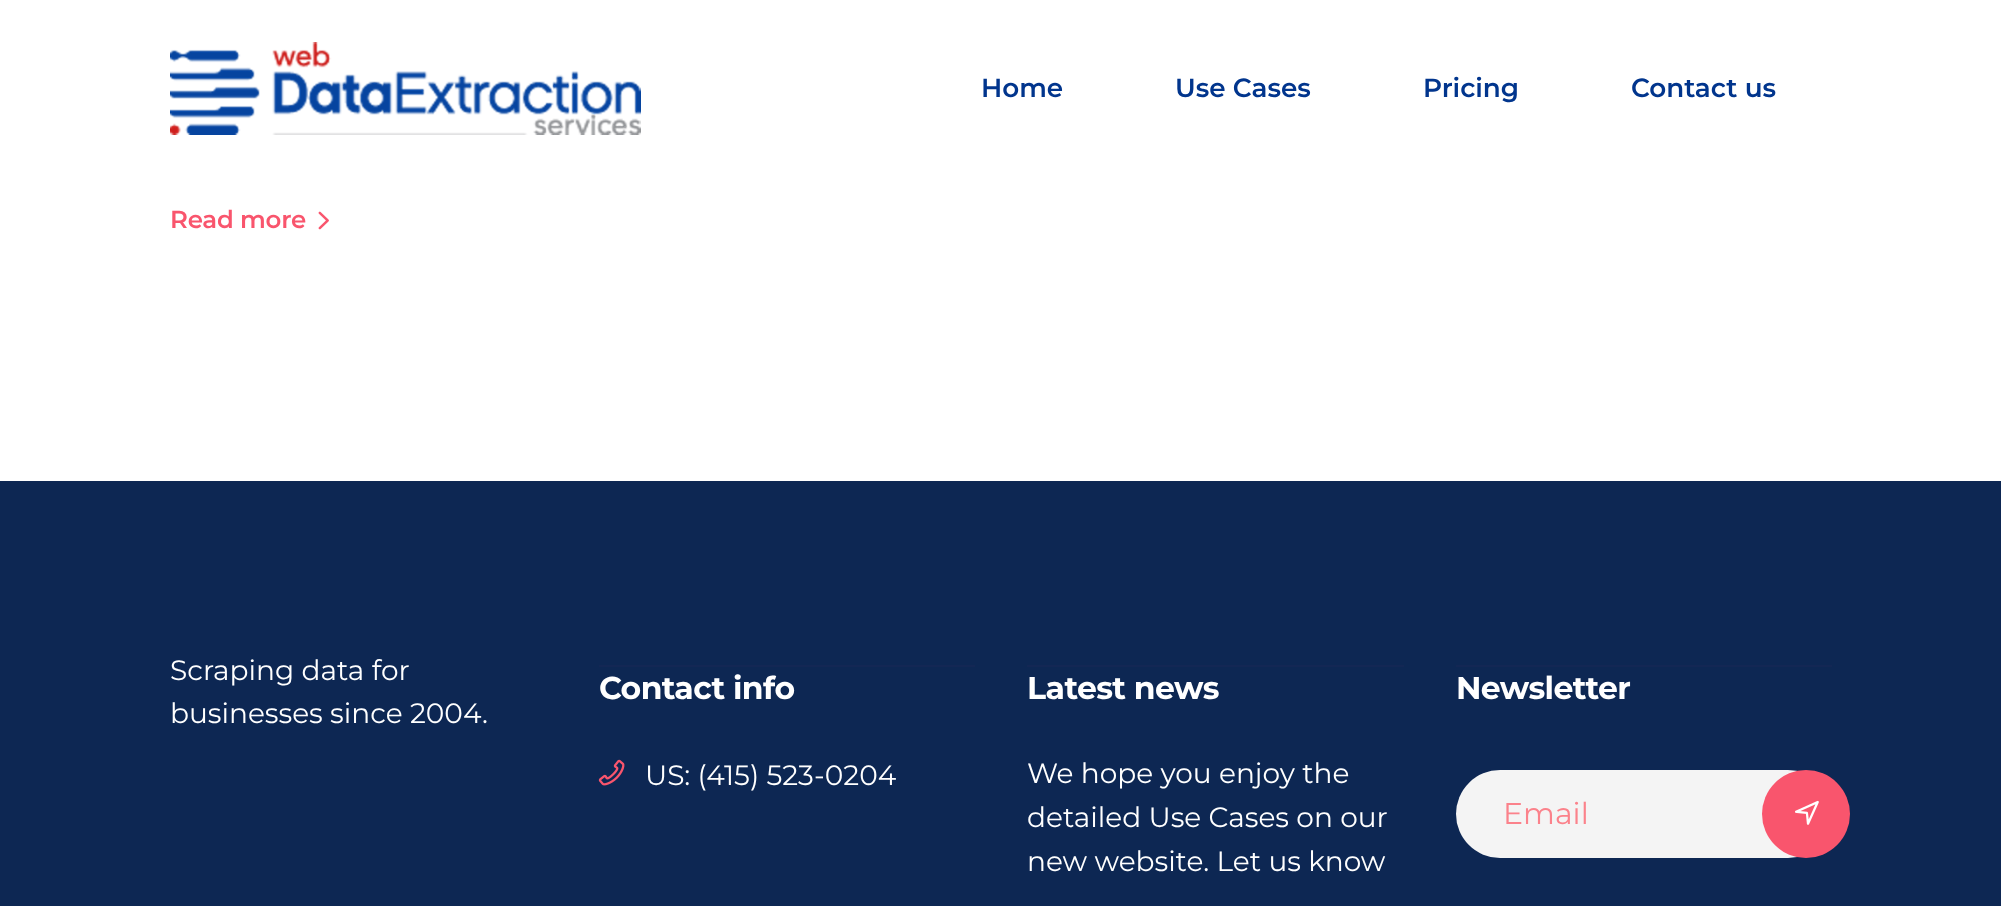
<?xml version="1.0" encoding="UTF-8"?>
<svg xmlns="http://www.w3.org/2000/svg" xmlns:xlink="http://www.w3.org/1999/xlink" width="2001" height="906">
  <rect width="100%" height="100%" fill="#ffffff" />
  <image x="170" y="42" width="471" height="93" xlink:href="image1.png" />
  <image x="318" y="211" width="11" height="19" xlink:href="image2.png" />
  <rect y="481" width="2001" height="425" fill="#0d2753" />
  <rect x="599" y="665" width="376" height="2" fill="#132754" />
  <image x="598" y="759" width="27" height="27" xlink:href="image3.png" />
  <rect x="1027" y="665" width="377" height="2" fill="#132754" />
  <rect x="1456" y="665" width="376" height="2" fill="#132754" />
  <rect x="1456" y="770" width="376" height="88" rx="44" fill="#f4f4f4" />
  <circle cx="1806" cy="814" r="44" fill="#f9556d" />
  <image x="1795" y="800" width="24" height="25" xlink:href="image4.png" />
  <text x="981" y="97" style="font-family: Montserrat; font-size: 26.25px; font-weight: 600; fill: #01358d">Home</text>
  <text x="1175" y="97" style="font-family: Montserrat; font-size: 26.25px; font-weight: 600; fill: #01358d">Use Cases</text>
  <text x="1423" y="97" style="font-family: Montserrat; font-size: 26.25px; font-weight: 600; fill: #01358d">Pricing</text>
  <text x="1631" y="97" style="font-family: Montserrat; font-size: 26.25px; font-weight: 600; fill: #01358d">Contact us</text>
  <text x="170" y="228" style="font-family: Montserrat; font-size: 24.5px; font-weight: 600; letter-spacing: -0.25px; fill: #f9556d">Read more</text>
  <text x="170" y="680" style="font-family: Montserrat; font-size: 28px; fill: #ffffff">Scraping data for</text>
  <text x="170" y="723" style="font-family: Montserrat; font-size: 28px; fill: #ffffff">businesses since 2004.</text>
  <text x="599" y="699" style="font-family: Montserrat; font-size: 31.5px; font-weight: bold; letter-spacing: -0.6px; fill: #ffffff">Contact info</text>
  <text x="645" y="785" style="font-family: Montserrat; font-size: 28px; fill: #ffffff">US: (415) 523-0204</text>
  <text x="1027" y="699" style="font-family: Montserrat; font-size: 31.5px; font-weight: bold; letter-spacing: -0.6px; fill: #ffffff">Latest news</text>
  <text x="1027" y="783" style="font-family: Montserrat; font-size: 28px; fill: #ffffff">We hope you enjoy the</text>
  <text x="1027" y="827" style="font-family: Montserrat; font-size: 28px; fill: #ffffff">detailed Use Cases on our</text>
  <text x="1027" y="871" style="font-family: Montserrat; font-size: 28px; fill: #ffffff">new website. Let us know</text>
  <text x="1456" y="699" style="font-family: Montserrat; font-size: 31.5px; font-weight: bold; letter-spacing: -0.6px; fill: #ffffff">Newsletter</text>
  <text x="1503" y="824" style="font-family: Montserrat; font-size: 30px; fill: #fb828b">Email</text>
</svg>
